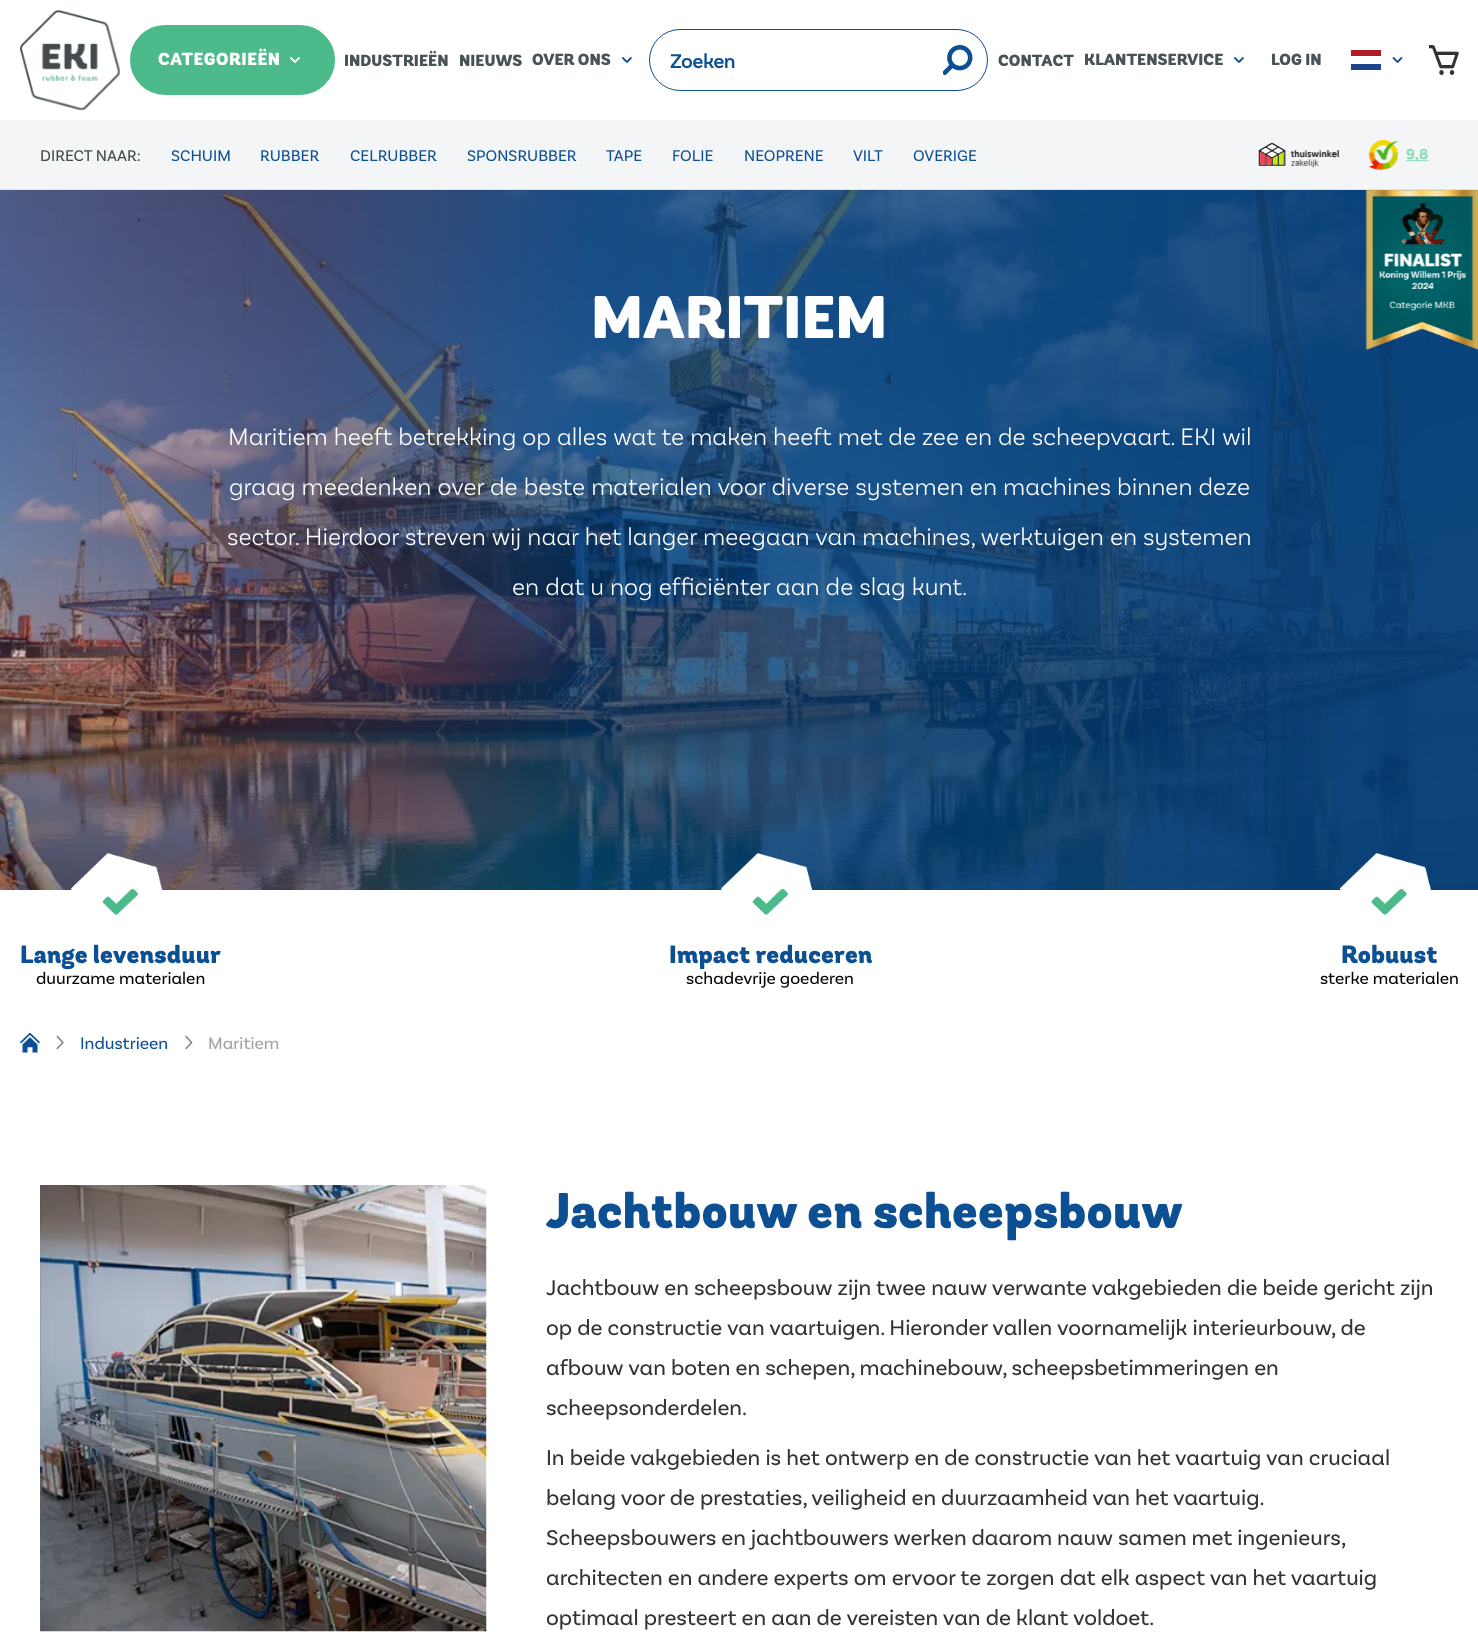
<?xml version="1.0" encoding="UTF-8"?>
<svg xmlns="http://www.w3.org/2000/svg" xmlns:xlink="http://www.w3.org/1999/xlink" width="1478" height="1641">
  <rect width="100%" height="100%" fill="#ffffff" />
  <image x="20" y="10" width="100" height="100" xlink:href="image1.png" />
  <rect x="131.5" y="26.5" width="202" height="67" rx="33.5" fill="#4cba8b" stroke="#4cba8b" stroke-width="3" />
  <image x="290" y="57" width="10" height="6" xlink:href="image2.png" />
  <image x="622" y="57" width="10" height="6" xlink:href="image3.png" />
  <rect x="649.5" y="29.5" width="338" height="61" rx="30.5" fill="none" stroke="#0c4f93" />
  <image x="943" y="45" width="30" height="30" xlink:href="image4.png" />
  <image x="1234" y="57" width="10" height="6" xlink:href="image5.png" />
  <rect x="1351" y="50" width="30" height="6" fill="#af1b27" />
  <rect x="1351" y="64" width="30" height="6" fill="#1e448b" />
  <image x="1392" y="57" width="11" height="6" xlink:href="image6.png" />
  <image x="1429" y="45" width="30" height="30" xlink:href="image7.png" />
  <rect y="120" width="1478" height="69" fill="#f4f5f7" />
  <rect y="189" width="1478" height="1" fill="#dde4ed" />
  <image x="1258" y="143" width="81" height="24" xlink:href="image8.png" />
  <image x="1368" y="140" width="61" height="30" xlink:href="image9.png" />
  <image x="0" y="190" width="1478" height="700" xlink:href="image11.png" />
  <image x="1365" y="190" width="113" height="160" xlink:href="image10.png" />
  <image x="71" y="853" width="92" height="62" xlink:href="image12.png" />
  <image x="721" y="853" width="92" height="62" xlink:href="image13.png" />
  <image x="1339" y="852" width="93" height="63" xlink:href="image14.png" />
  <image x="20" y="1033" width="20" height="20" xlink:href="image15.png" />
  <image x="56" y="1035" width="8" height="15" xlink:href="image16.png" />
  <image x="185" y="1035" width="8" height="15" xlink:href="image17.png" />
  <image x="40" y="1185" width="447" height="447" xlink:href="image18.png" />
  <text x="158" y="65" style="font-family: 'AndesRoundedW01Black'; font-size: 17.5px; font-weight: 900; letter-spacing: 0.5px; fill: #ffffff">CATEGORIEËN</text>
  <text x="344" y="66" style="font-family: 'AndesRoundedW01Black'; font-size: 16.25px; font-weight: 900; fill: #485355">INDUSTRIEËN</text>
  <text x="459" y="66" style="font-family: 'AndesRoundedW01Black'; font-size: 16.25px; font-weight: 900; fill: #485355">NIEUWS</text>
  <text x="532" y="65" style="font-family: 'AndesRoundedW01Black'; font-size: 16.25px; font-weight: 900; fill: #485355">OVER ONS</text>
  <text x="670" y="68" style="font-family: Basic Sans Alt; font-size: 20px; font-weight: bold; fill: #0c4f93">Zoeken</text>
  <text x="998" y="66" style="font-family: 'AndesRoundedW01Black'; font-size: 16.25px; font-weight: 900; fill: #485355">CONTACT</text>
  <text x="1084" y="65" style="font-family: 'AndesRoundedW01Black'; font-size: 16.25px; font-weight: 900; fill: #485355">KLANTENSERVICE</text>
  <text x="1271" y="65" style="font-family: 'AndesRoundedW01Black'; font-size: 16.25px; font-weight: 900; fill: #485355">LOG IN</text>
  <text x="40" y="161" style="font-family: Basic Sans Alt; font-size: 16.25px; fill: #3f494b">DIRECT NAAR:</text>
  <text x="171" y="161" style="font-family: Basic Sans Alt; font-size: 16.25px; fill: #0c4f93">SCHUIM</text>
  <text x="260" y="161" style="font-family: Basic Sans Alt; font-size: 16.25px; fill: #0c4f93">RUBBER</text>
  <text x="350" y="161" style="font-family: Basic Sans Alt; font-size: 16.25px; fill: #0c4f93">CELRUBBER</text>
  <text x="467" y="161" style="font-family: Basic Sans Alt; font-size: 16.25px; fill: #0c4f93">SPONSRUBBER</text>
  <text x="606" y="161" style="font-family: Basic Sans Alt; font-size: 16.25px; fill: #0c4f93">TAPE</text>
  <text x="672" y="161" style="font-family: Basic Sans Alt; font-size: 16.25px; fill: #0c4f93">FOLIE</text>
  <text x="744" y="161" style="font-family: Basic Sans Alt; font-size: 16.25px; fill: #0c4f93">NEOPRENE</text>
  <text x="853" y="161" style="font-family: Basic Sans Alt; font-size: 16.25px; fill: #0c4f93">VILT</text>
  <text x="913" y="161" style="font-family: Basic Sans Alt; font-size: 16.25px; fill: #0c4f93">OVERIGE</text>
  <text x="591" y="338" style="font-family: 'AndesRoundedW01Black'; font-size: 60px; font-weight: 900; fill: #ffffff">MARITIEM</text>
  <text x="228" y="445" style="font-family: Basic Sans Alt; font-size: 25px; font-weight: 300; fill: #ffffff">Maritiem heeft betrekking op alles wat te maken heeft met de zee en de scheepvaart. EKI wil</text>
  <text x="229" y="495" style="font-family: Basic Sans Alt; font-size: 25px; font-weight: 300; fill: #ffffff">graag meedenken over de beste materialen voor diverse systemen en machines binnen deze</text>
  <text x="227" y="545" style="font-family: Basic Sans Alt; font-size: 25px; font-weight: 300; fill: #ffffff">sector. Hierdoor streven wij naar het langer meegaan van machines, werktuigen en systemen</text>
  <text x="512" y="595" style="font-family: Basic Sans Alt; font-size: 25px; font-weight: 300; fill: #ffffff">en dat u nog efficiënter aan de slag kunt.</text>
  <text x="20" y="963" style="font-family: 'AndesRoundedW01Black'; font-size: 25px; font-weight: 900; fill: #0c4f93">Lange levensduur</text>
  <text x="36" y="984" style="font-family: Basic Sans Alt; font-size: 17.5px; fill: #000000">duurzame materialen</text>
  <text x="669" y="963" style="font-family: 'AndesRoundedW01Black'; font-size: 25px; font-weight: 900; fill: #0c4f93">Impact reduceren</text>
  <text x="686" y="984" style="font-family: Basic Sans Alt; font-size: 17.5px; fill: #000000">schadevrije goederen</text>
  <text x="1341" y="963" style="font-family: 'AndesRoundedW01Black'; font-size: 25px; font-weight: 900; fill: #0c4f93">Robuust</text>
  <text x="1320" y="984" style="font-family: Basic Sans Alt; font-size: 17.5px; fill: #000000">sterke materialen</text>
  <text x="80" y="1049" style="font-family: Basic Sans Alt; font-size: 17.5px; fill: #0c4f93">Industrieen</text>
  <text x="208" y="1049" style="font-family: Basic Sans Alt; font-size: 17.5px; fill: #a3a3a3">Maritiem</text>
  <text x="546" y="1228" style="font-family: 'AndesRoundedW01Black'; font-size: 50px; font-weight: 900; fill: #0c4f93">Jachtbouw en scheepsbouw</text>
  <text x="546" y="1295" style="font-family: Basic Sans Alt; font-size: 22.5px; fill: #333333">Jachtbouw en scheepsbouw zijn twee nauw verwante vakgebieden die beide gericht zijn</text>
  <text x="546" y="1335" style="font-family: Basic Sans Alt; font-size: 22.5px; fill: #333333">op de constructie van vaartuigen. Hieronder vallen voornamelijk interieurbouw, de</text>
  <text x="546" y="1375" style="font-family: Basic Sans Alt; font-size: 22.5px; fill: #333333">afbouw van boten en schepen, machinebouw, scheepsbetimmeringen en</text>
  <text x="546" y="1415" style="font-family: Basic Sans Alt; font-size: 22.5px; fill: #333333">scheepsonderdelen.</text>
  <text x="546" y="1465" style="font-family: Basic Sans Alt; font-size: 22.5px; fill: #333333">In beide vakgebieden is het ontwerp en de constructie van het vaartuig van cruciaal</text>
  <text x="546" y="1505" word-spacing="-0.1" style="font-family: Basic Sans Alt; font-size: 22.5px; fill: #333333">belang voor de prestaties, veiligheid en duurzaamheid van het vaartuig.</text>
  <text x="546" y="1545" word-spacing="-0.25" style="font-family: Basic Sans Alt; font-size: 22.5px; fill: #333333">Scheepsbouwers en jachtbouwers werken daarom nauw samen met ingenieurs,</text>
  <text x="546" y="1585" style="font-family: Basic Sans Alt; font-size: 22.5px; fill: #333333">architecten en andere experts om ervoor te zorgen dat elk aspect van het vaartuig</text>
  <text x="546" y="1625" style="font-family: Basic Sans Alt; font-size: 22.5px; fill: #333333">optimaal presteert en aan de vereisten van de klant voldoet.</text>
</svg>
